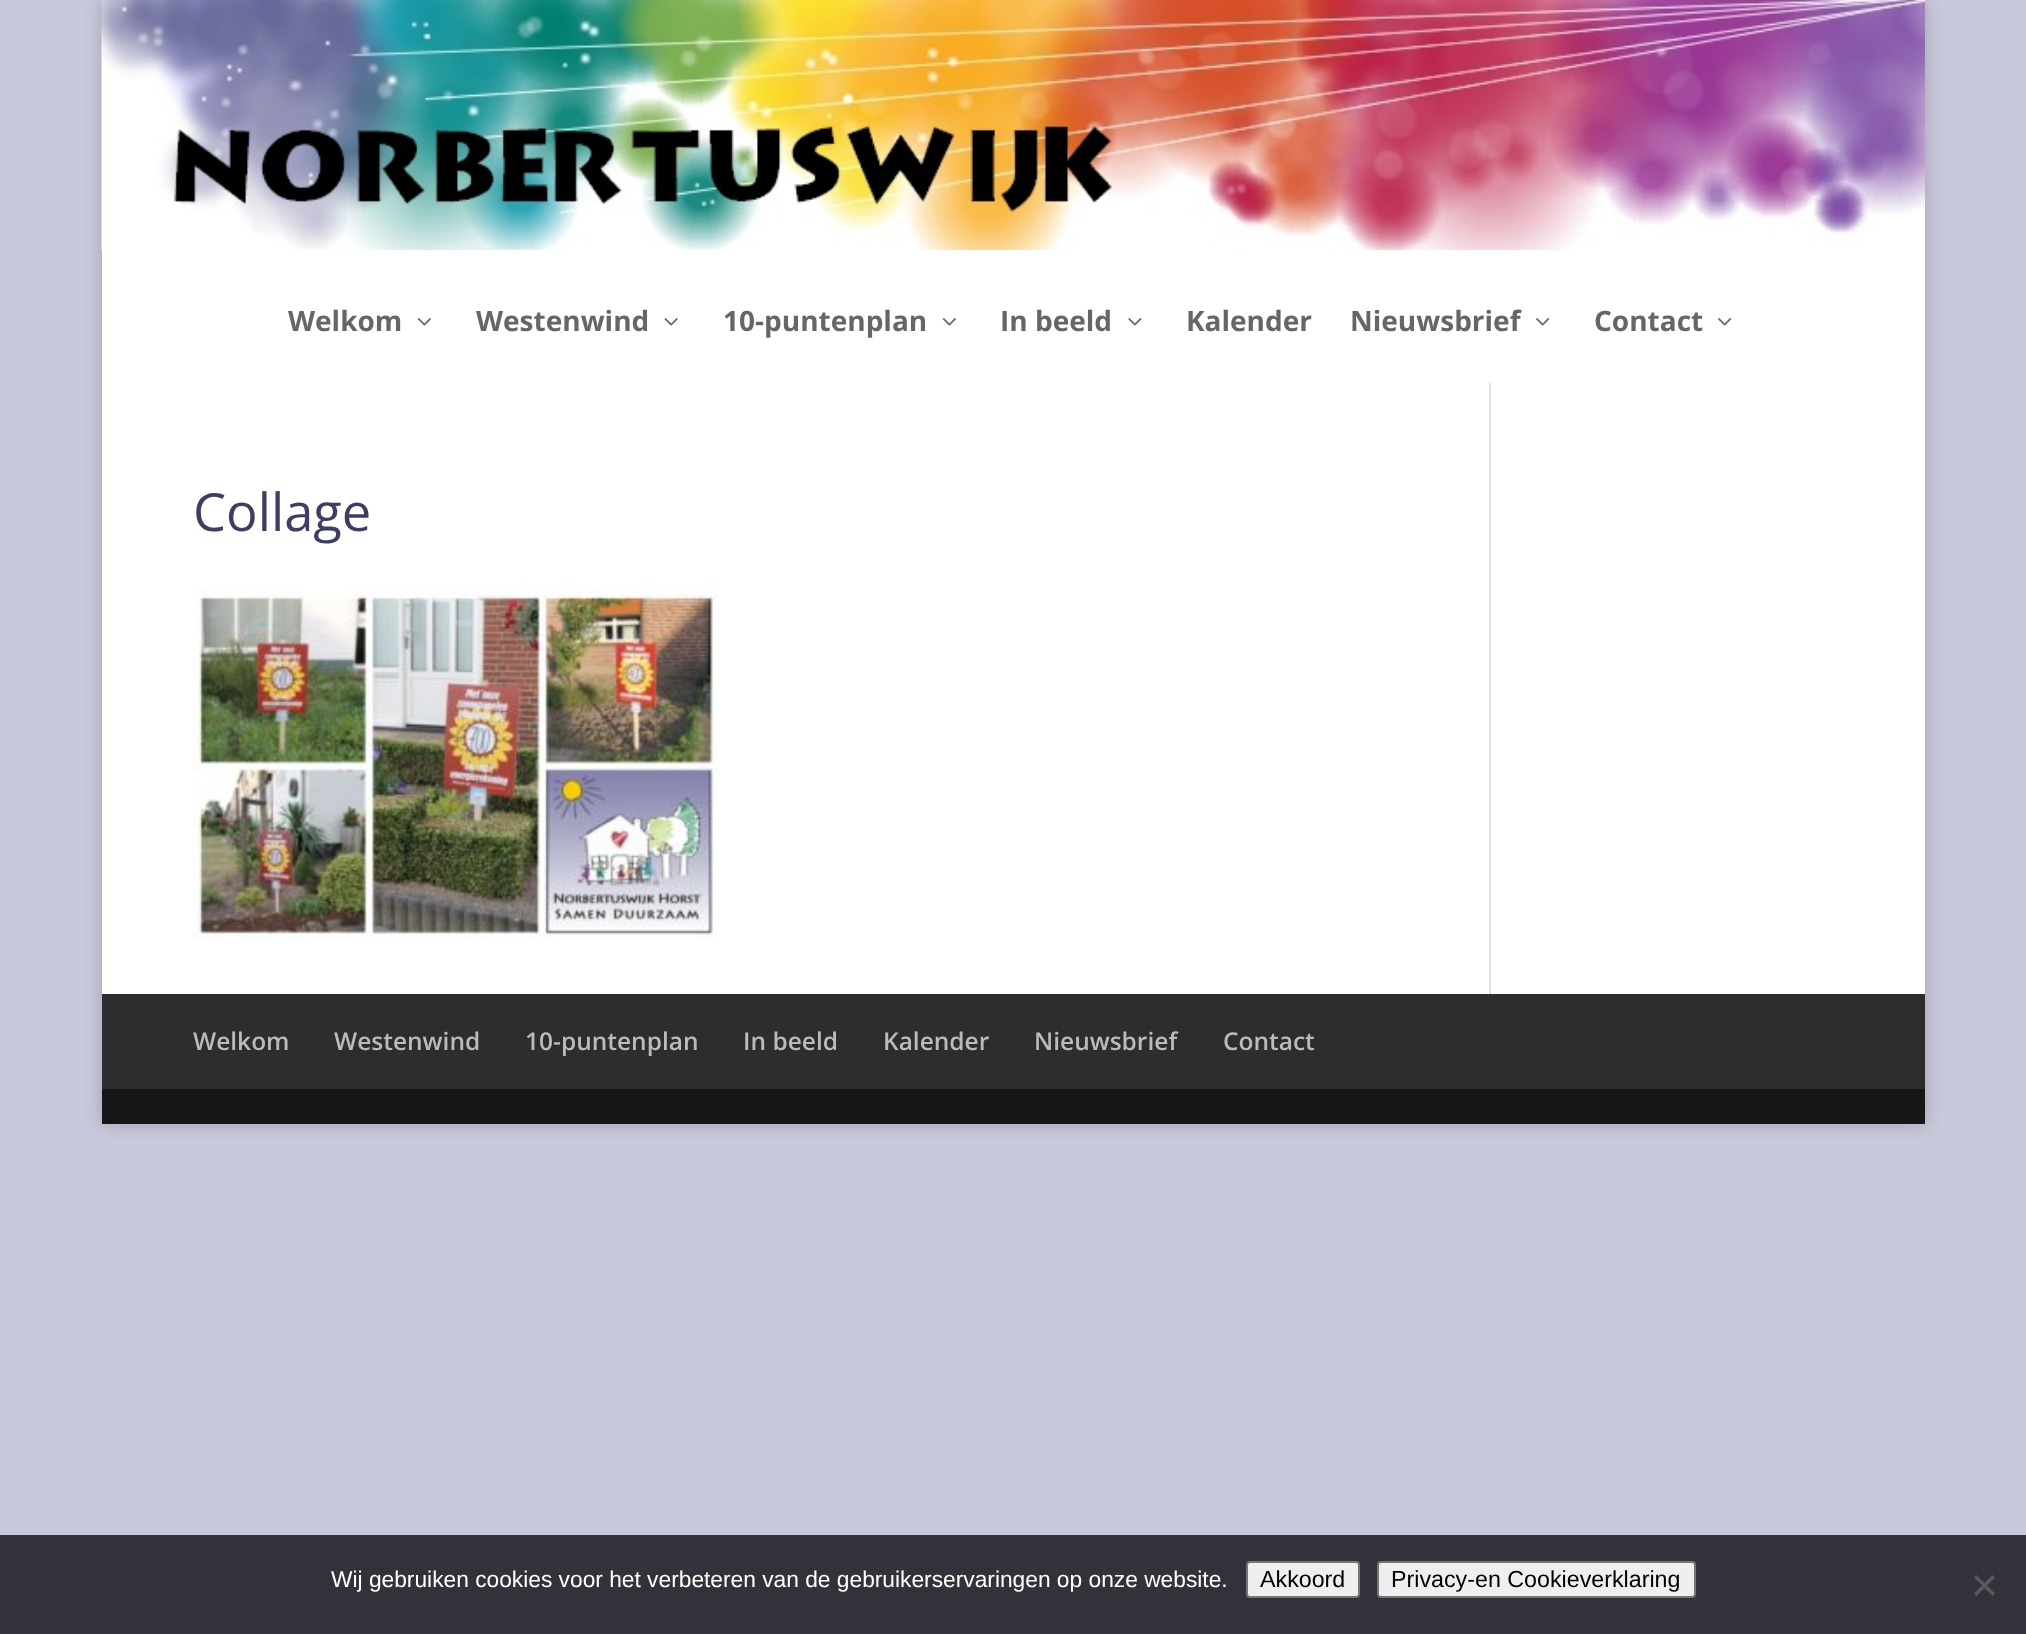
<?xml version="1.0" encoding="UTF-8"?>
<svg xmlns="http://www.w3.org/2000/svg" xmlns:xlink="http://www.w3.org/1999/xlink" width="2026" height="1634">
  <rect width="100%" height="100%" fill="#c9c9dc" />
  <rect x="102" width="1823" height="1124" fill="#000000" fill-opacity="0.2" filter="blur(9px)" />
  <image x="101" y="0" width="1824" height="251" xlink:href="image1.png" />
  <rect x="102" y="250" width="1823" height="133" fill="#ffffff" />
  <image x="417" y="318" width="14" height="8" xlink:href="image2.png" />
  <image x="664" y="318" width="14" height="8" xlink:href="image3.png" />
  <image x="942" y="318" width="14" height="8" xlink:href="image2.png" />
  <image x="1128" y="318" width="14" height="8" xlink:href="image4.png" />
  <image x="1536" y="318" width="14" height="8" xlink:href="image5.png" />
  <image x="1718" y="318" width="14" height="8" xlink:href="image5.png" />
  <rect x="102" y="383" width="1823" height="611" fill="#ffffff" />
  <image x="192" y="589" width="526" height="351" xlink:href="image6.png" />
  <rect x="1489" y="383" width="2" height="611" fill="#e2e2e2" />
  <rect x="102" y="994" width="1823" height="95" fill="#2d2d2d" />
  <rect x="102" y="1089" width="1823" height="35" fill="#171717" />
  <rect y="1535" width="2026" height="99" fill="#32323a" />
  <rect x="1247" y="1562" width="112" height="35" rx="3" fill="#efefef" stroke="#767676" stroke-width="2" />
  <rect x="1378" y="1562" width="317" height="35" rx="3" fill="#efefef" stroke="#767676" stroke-width="2" />
  <path d="M 1992.5 1575 l 2.5 2.5 l -18.5 18.5 l -2.5 -2.5 z" fill="#59595d" />
  <path d="M 1974 1577.5 l 2.5 -2.5 l 18.5 18.5 l -2.5 2.5 z" fill="#59595d" />
  <text x="288" y="331" style="font-family: Open Sans; font-size: 28px; font-weight: bold; fill: #666666">Welkom</text>
  <text x="476" y="331" style="font-family: Open Sans; font-size: 28px; font-weight: bold; fill: #666666">Westenwind</text>
  <text x="723" y="331" style="font-family: Open Sans; font-size: 28px; font-weight: bold; fill: #666666">10-puntenplan</text>
  <text x="1000" y="331" style="font-family: Open Sans; font-size: 28px; font-weight: bold; fill: #666666">In beeld</text>
  <text x="1186" y="331" style="font-family: Open Sans; font-size: 28px; font-weight: bold; fill: #666666">Kalender</text>
  <text x="1350" y="331" style="font-family: Open Sans; font-size: 28px; font-weight: bold; fill: #666666">Nieuwsbrief</text>
  <text x="1594" y="331" style="font-family: Open Sans; font-size: 28px; font-weight: bold; fill: #666666">Contact</text>
  <text x="193" y="531" style="font-family: Open Sans; font-size: 52.5px; fill: #3e3e62">Collage</text>
  <text x="193" y="1050" style="font-family: Open Sans; font-size: 24.5px; font-weight: 600; fill: #bbbbbb">Welkom</text>
  <text x="334" y="1050" style="font-family: Open Sans; font-size: 24.5px; font-weight: 600; fill: #bbbbbb">Westenwind</text>
  <text x="525" y="1050" style="font-family: Open Sans; font-size: 24.5px; font-weight: 600; fill: #bbbbbb">10-puntenplan</text>
  <text x="743" y="1050" style="font-family: Open Sans; font-size: 24.5px; font-weight: 600; fill: #bbbbbb">In beeld</text>
  <text x="883" y="1050" style="font-family: Open Sans; font-size: 24.5px; font-weight: 600; fill: #bbbbbb">Kalender</text>
  <text x="1034" y="1050" style="font-family: Open Sans; font-size: 24.5px; font-weight: 600; fill: #bbbbbb">Nieuwsbrief</text>
  <text x="1223" y="1050" style="font-family: Open Sans; font-size: 24.5px; font-weight: 600; fill: #bbbbbb">Contact</text>
  <text x="331" y="1587" style="font-family: Liberation Sans; font-size: 22.75px; fill: #ffffff">Wij gebruiken cookies voor het verbeteren van de gebruikerservaringen op onze website.</text>
  <text x="1260" y="1587" style="font-family: Liberation Sans; font-size: 23.25px; fill: #000000">Akkoord</text>
  <text x="1391" y="1587" style="font-family: Liberation Sans; font-size: 23.25px; fill: #000000">Privacy-en Cookieverklaring</text>
</svg>
